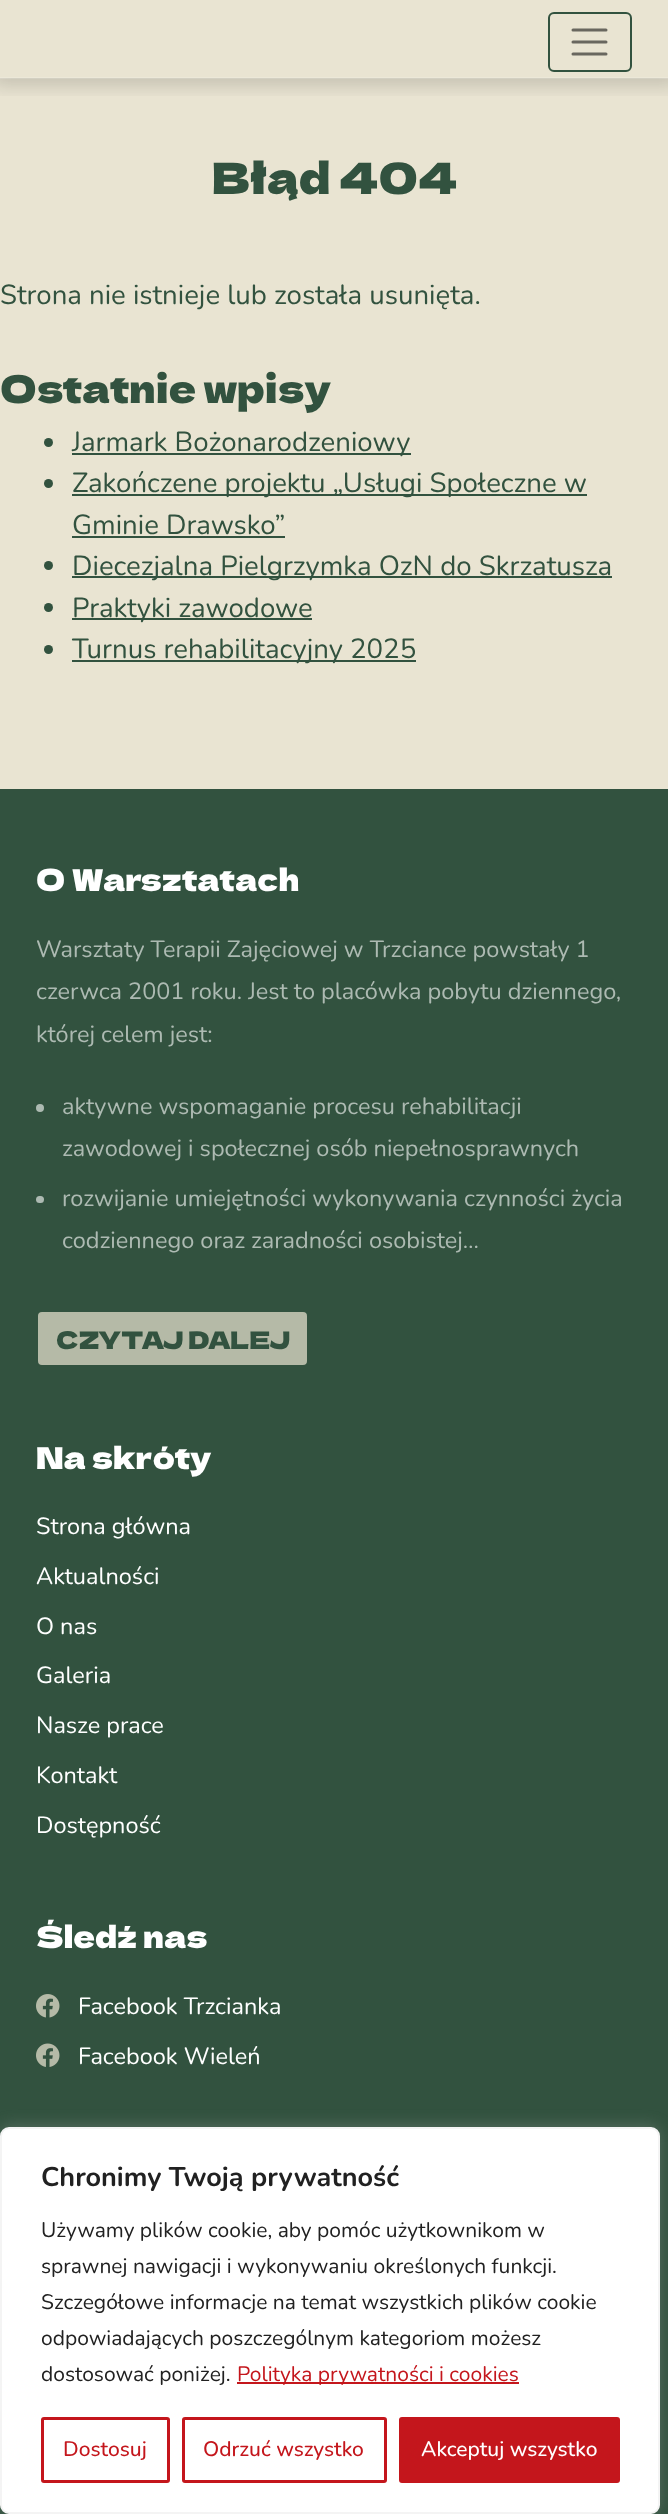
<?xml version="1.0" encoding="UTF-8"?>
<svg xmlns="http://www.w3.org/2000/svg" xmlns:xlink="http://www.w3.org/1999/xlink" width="668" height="2514">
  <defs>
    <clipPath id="clip1"><rect x="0" y="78" width="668" height="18" /></clipPath>
  </defs>
  <rect width="100%" height="100%" fill="#e9e4d2" />
  <g clip-path="url(#clip1)">
    <rect x="-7" y="-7" width="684" height="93" fill="#000000" fill-opacity="0.15" filter="blur(9px)" />
  </g>
  <rect y="77" width="668" height="2" fill="#ffffff" fill-opacity="0.15" />
  <rect x="549" y="13" width="82" height="58" rx="5" fill="none" stroke="#32523f" stroke-width="2" />
  <path d="M 573 30 h 33 m -33 12 h 33 m -33 12 h 33" fill="none" stroke="#69675f" stroke-width="3" stroke-linecap="round" />
  <circle cx="48.5" cy="442.5" r="4.5" fill="#32523f" />
  <rect x="72" y="453" width="339" height="2" fill="#32523f" />
  <circle cx="48.5" cy="483.5" r="4.5" fill="#32523f" />
  <rect x="72" y="494" width="515" height="2" fill="#32523f" />
  <rect x="72" y="536" width="213" height="2" fill="#32523f" />
  <circle cx="48.5" cy="565.5" r="4.5" fill="#32523f" />
  <rect x="72" y="576" width="540" height="2" fill="#32523f" />
  <circle cx="48.5" cy="607.5" r="4.5" fill="#32523f" />
  <rect x="72" y="618" width="240" height="2" fill="#32523f" />
  <circle cx="48.5" cy="649.5" r="4.5" fill="#32523f" />
  <rect x="72" y="660" width="344" height="2" fill="#32523f" />
  <rect y="789" width="668" height="1725" fill="#32523f" />
  <circle cx="40" cy="1108" r="4" fill="#adbab2" />
  <rect x="36" y="1196" width="8" height="7" rx="3.5" fill="#adbab2" />
  <rect x="37" y="1311" width="271" height="55" rx="5" fill="#b5baa7" stroke="#32523f" stroke-width="2" />
  <image x="36" y="1994" width="24" height="24" xlink:href="image1.png" />
  <image x="36" y="2043" width="24" height="24" xlink:href="image2.png" />
  <rect y="2126" width="660" height="387" rx="9" fill="#acabab" fill-opacity="0.3" filter="blur(7.5px)" />
  <rect x="1" y="2128" width="658" height="385" rx="8" fill="#ffffff" stroke="#f4f4f4" stroke-width="2" />
  <rect x="237" y="2382" width="282" height="2" fill="#c4161c" />
  <rect x="42.5" y="2418.5" width="126" height="63" rx="1.5" fill="none" stroke="#c4161c" stroke-width="3" />
  <rect x="183.5" y="2418.5" width="202" height="63" rx="1.5" fill="none" stroke="#c4161c" stroke-width="3" />
  <rect x="400.5" y="2418.5" width="218" height="63" rx="1.5" fill="#c4161c" stroke="#c4161c" stroke-width="3" />
  <text x="212" y="194" style="font-family: Dela Gothic One; font-size: 43px; fill: #32523f">Błąd 404</text>
  <text x="0" y="304" style="font-family: Nunito; font-size: 27.6px; fill: #32523f">Strona nie istnieje lub została usunięta.</text>
  <text x="0" y="403" style="font-family: Dela Gothic One; font-size: 37.75px; fill: #32523f">Ostatnie wpisy</text>
  <text x="72" y="451" style="font-family: Nunito; font-size: 27.6px; fill: #32523f">Jarmark Bożonarodzeniowy</text>
  <text x="72" y="492" style="font-family: Nunito; font-size: 27.6px; fill: #32523f">Zakończene projektu „Usługi Społeczne w</text>
  <text x="72" y="534" style="font-family: Nunito; font-size: 27.6px; fill: #32523f">Gminie Drawsko”</text>
  <text x="72" y="575" style="font-family: Nunito; font-size: 27.6px; fill: #32523f">Diecezjalna Pielgrzymka OzN do Skrzatusza</text>
  <text x="72" y="617" style="font-family: Nunito; font-size: 27.6px; fill: #32523f">Praktyki zawodowe</text>
  <text x="72" y="658" style="font-family: Nunito; font-size: 27.6px; fill: #32523f">Turnus rehabilitacyjny 2025</text>
  <text x="36" y="891" style="font-family: Dela Gothic One; font-size: 30px; fill: #ffffff">O Warsztatach</text>
  <text x="36" y="957" style="font-family: Nunito; font-size: 23.5px; fill: #adbab2">Warsztaty Terapii Zajęciowej w Trzciance powstały 1</text>
  <text x="36" y="999" style="font-family: Nunito; font-size: 23.5px; fill: #adbab2">czerwca 2001 roku. Jest to placówka pobytu dziennego,</text>
  <text x="36" y="1042" style="font-family: Nunito; font-size: 23.5px; fill: #adbab2">której celem jest:</text>
  <text x="62" y="1114" style="font-family: Nunito; font-size: 23.5px; fill: #adbab2">aktywne wspomaganie procesu rehabilitacji</text>
  <text x="62" y="1156" style="font-family: Nunito; font-size: 23.5px; fill: #adbab2">zawodowej i społecznej osób niepełnosprawnych</text>
  <text x="62" y="1206" style="font-family: Nunito; font-size: 23.5px; fill: #adbab2">rozwijanie umiejętności wykonywania czynności życia</text>
  <text x="62" y="1248" style="font-family: Nunito; font-size: 23.5px; fill: #adbab2">codziennego oraz zaradności osobistej…</text>
  <text x="56" y="1349" style="font-family: Dela Gothic One; font-size: 24px; fill: #32523f">CZYTAJ DALEJ</text>
  <text x="36" y="1469" style="font-family: Dela Gothic One; font-size: 30px; fill: #ffffff">Na skróty</text>
  <text x="36" y="1534" style="font-family: Nunito; font-size: 23.5px; fill: #ffffff">Strona główna</text>
  <text x="36" y="1584" style="font-family: Nunito; font-size: 23.5px; fill: #ffffff">Aktualności</text>
  <text x="36" y="1634" style="font-family: Nunito; font-size: 23.5px; fill: #ffffff">O nas</text>
  <text x="36" y="1683" style="font-family: Nunito; font-size: 23.5px; fill: #ffffff">Galeria</text>
  <text x="36" y="1733" style="font-family: Nunito; font-size: 23.5px; fill: #ffffff">Nasze prace</text>
  <text x="36" y="1783" style="font-family: Nunito; font-size: 23.5px; fill: #ffffff">Kontakt</text>
  <text x="36" y="1833" style="font-family: Nunito; font-size: 23.5px; fill: #ffffff">Dostępność</text>
  <text x="36" y="1948" style="font-family: Dela Gothic One; font-size: 30px; fill: #ffffff">Śledź nas</text>
  <text x="78" y="2014" style="font-family: Nunito; font-size: 23.5px; fill: #ffffff">Facebook Trzcianka</text>
  <text x="78" y="2064" style="font-family: Nunito; font-size: 23.5px; fill: #ffffff">Facebook Wieleń</text>
  <text x="41" y="2186" style="font-family: Nunito; font-size: 27px; font-weight: bold; fill: #212121">Chronimy Twoją prywatność</text>
  <text x="41" y="2237" style="font-family: Nunito; font-size: 21px; fill: #212121">Używamy plików cookie, aby pomóc użytkownikom w</text>
  <text x="41" y="2273" style="font-family: Nunito; font-size: 21px; fill: #212121">sprawnej nawigacji i wykonywaniu określonych funkcji.</text>
  <text x="41" y="2309" style="font-family: Nunito; font-size: 21px; fill: #212121">Szczegółowe informacje na temat wszystkich plików cookie</text>
  <text x="41" y="2345" style="font-family: Nunito; font-size: 21px; fill: #212121">odpowiadających poszczególnym kategoriom możesz</text>
  <text x="41" y="2381" style="font-family: Nunito; font-size: 21px; fill: #212121">dostosować poniżej.</text>
  <text x="237" y="2381" style="font-family: Nunito; font-size: 21px; fill: #c4161c">Polityka prywatności i cookies</text>
  <text x="63" y="2456" style="font-family: Nunito; font-size: 21px; font-weight: 500; fill: #c4161c">Dostosuj</text>
  <text x="203" y="2456" style="font-family: Nunito; font-size: 21px; font-weight: 500; fill: #c4161c">Odrzuć wszystko</text>
  <text x="421" y="2456" style="font-family: Nunito; font-size: 21px; font-weight: 500; fill: #ffffff">Akceptuj wszystko</text>
</svg>
